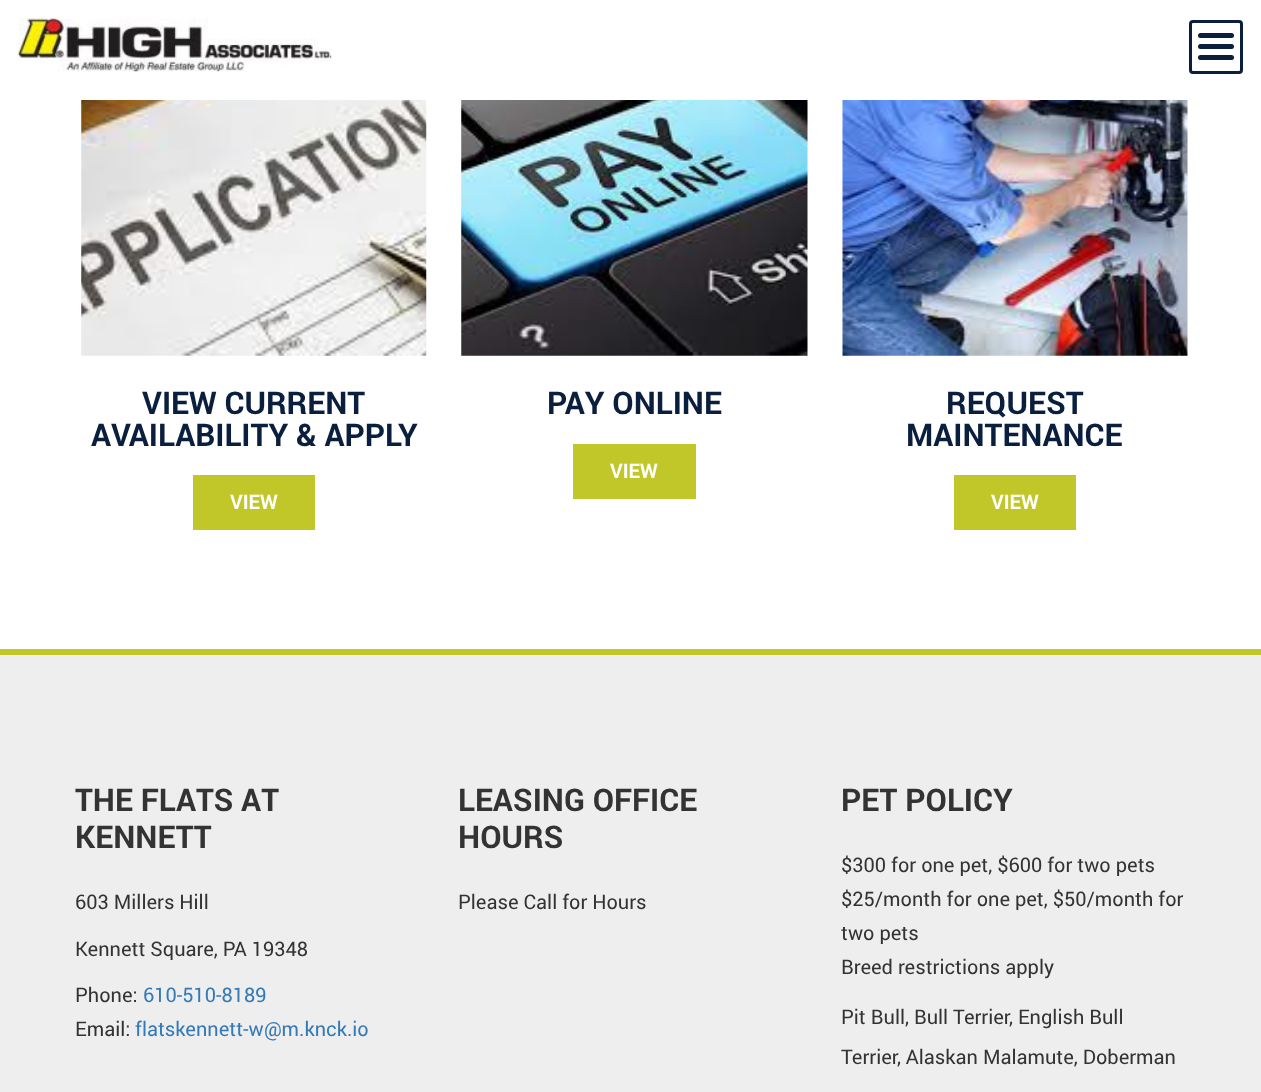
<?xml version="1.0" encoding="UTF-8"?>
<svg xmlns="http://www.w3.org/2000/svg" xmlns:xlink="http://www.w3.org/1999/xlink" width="1261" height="1092">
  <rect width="100%" height="100%" fill="#ffffff" />
  <image x="18" y="18" width="314" height="54" xlink:href="image1.png" />
  <rect x="1190.5" y="21.5" width="51" height="51" rx="2.5" fill="none" stroke="#0a1e3e" stroke-width="3" />
  <rect x="1198" y="33" width="36" height="5" rx="2.5" fill="#0a1e3e" />
  <rect x="1198" y="44" width="36" height="5" rx="2.5" fill="#0a1e3e" />
  <rect x="1198" y="55" width="36" height="5" rx="2.5" fill="#0a1e3e" />
  <image x="81" y="100" width="346" height="256" xlink:href="image2.png" />
  <rect x="193" y="475" width="122" height="55" fill="#c2c729" />
  <image x="461" y="100" width="347" height="256" xlink:href="image3.png" />
  <rect x="573" y="444" width="123" height="55" fill="#c2c729" />
  <image x="842" y="100" width="346" height="256" xlink:href="image4.png" />
  <rect x="954" y="475" width="122" height="55" fill="#c2c729" />
  <rect y="655" width="1261" height="437" fill="#efeeee" />
  <rect y="649" width="1261" height="6" fill="#c2c729" />
  <text x="142" y="414" style="font-family: roboto; font-size: 31.25px; font-weight: bold; fill: #0a1e3e">VIEW CURRENT</text>
  <text x="91" y="446" style="font-family: roboto; font-size: 31.25px; font-weight: bold; fill: #0a1e3e">AVAILABILITY &amp; APPLY</text>
  <text x="230" y="509" style="font-family: roboto; font-size: 20px; font-weight: bold; fill: #ffffff">VIEW</text>
  <text x="547" y="414" style="font-family: roboto; font-size: 31.25px; font-weight: bold; fill: #0a1e3e">PAY ONLINE</text>
  <text x="610" y="478" style="font-family: roboto; font-size: 20px; font-weight: bold; fill: #ffffff">VIEW</text>
  <text x="946" y="414" style="font-family: roboto; font-size: 31.25px; font-weight: bold; fill: #0a1e3e">REQUEST</text>
  <text x="906" y="446" style="font-family: roboto; font-size: 31.25px; font-weight: bold; fill: #0a1e3e">MAINTENANCE</text>
  <text x="991" y="509" style="font-family: roboto; font-size: 20px; font-weight: bold; fill: #ffffff">VIEW</text>
  <text x="75" y="811" style="font-family: roboto; font-size: 31.25px; font-weight: bold; fill: #333333">THE FLATS AT</text>
  <text x="75" y="848" style="font-family: roboto; font-size: 31.25px; font-weight: bold; fill: #333333">KENNETT</text>
  <text x="75" y="909" style="font-family: roboto; font-size: 20px; fill: #333333">603 Millers Hill</text>
  <text x="75" y="956" style="font-family: roboto; font-size: 20px; fill: #333333">Kennett Square, PA 19348</text>
  <text x="75" y="1002" style="font-family: roboto; font-size: 20px; fill: #333333">Phone:</text>
  <text x="143" y="1002" style="font-family: roboto; font-size: 20px; fill: #337ab7">610-510-8189</text>
  <text x="75" y="1036" style="font-family: roboto; font-size: 20px; fill: #333333">Email:</text>
  <text x="135" y="1036" style="font-family: roboto; font-size: 20px; fill: #337ab7">flatskennett-w@m.knck.io</text>
  <text x="458" y="811" style="font-family: roboto; font-size: 31.25px; font-weight: bold; fill: #333333">LEASING OFFICE</text>
  <text x="458" y="848" style="font-family: roboto; font-size: 31.25px; font-weight: bold; fill: #333333">HOURS</text>
  <text x="458" y="909" style="font-family: roboto; font-size: 20px; fill: #333333">Please Call for Hours</text>
  <text x="841" y="811" style="font-family: roboto; font-size: 31.25px; font-weight: bold; fill: #333333">PET POLICY</text>
  <text x="841" y="872" style="font-family: roboto; font-size: 20px; fill: #333333">$300 for one pet, $600 for two pets</text>
  <text x="841" y="906" style="font-family: roboto; font-size: 20px; fill: #333333">$25/month for one pet, $50/month for</text>
  <text x="841" y="940" style="font-family: roboto; font-size: 20px; fill: #333333">two pets</text>
  <text x="841" y="974" style="font-family: roboto; font-size: 20px; fill: #333333">Breed restrictions apply</text>
  <text x="841" y="1024" style="font-family: roboto; font-size: 20px; fill: #333333">Pit Bull, Bull Terrier, English Bull</text>
  <text x="841" y="1064" style="font-family: roboto; font-size: 20px; fill: #333333">Terrier, Alaskan Malamute, Doberman</text>
</svg>
